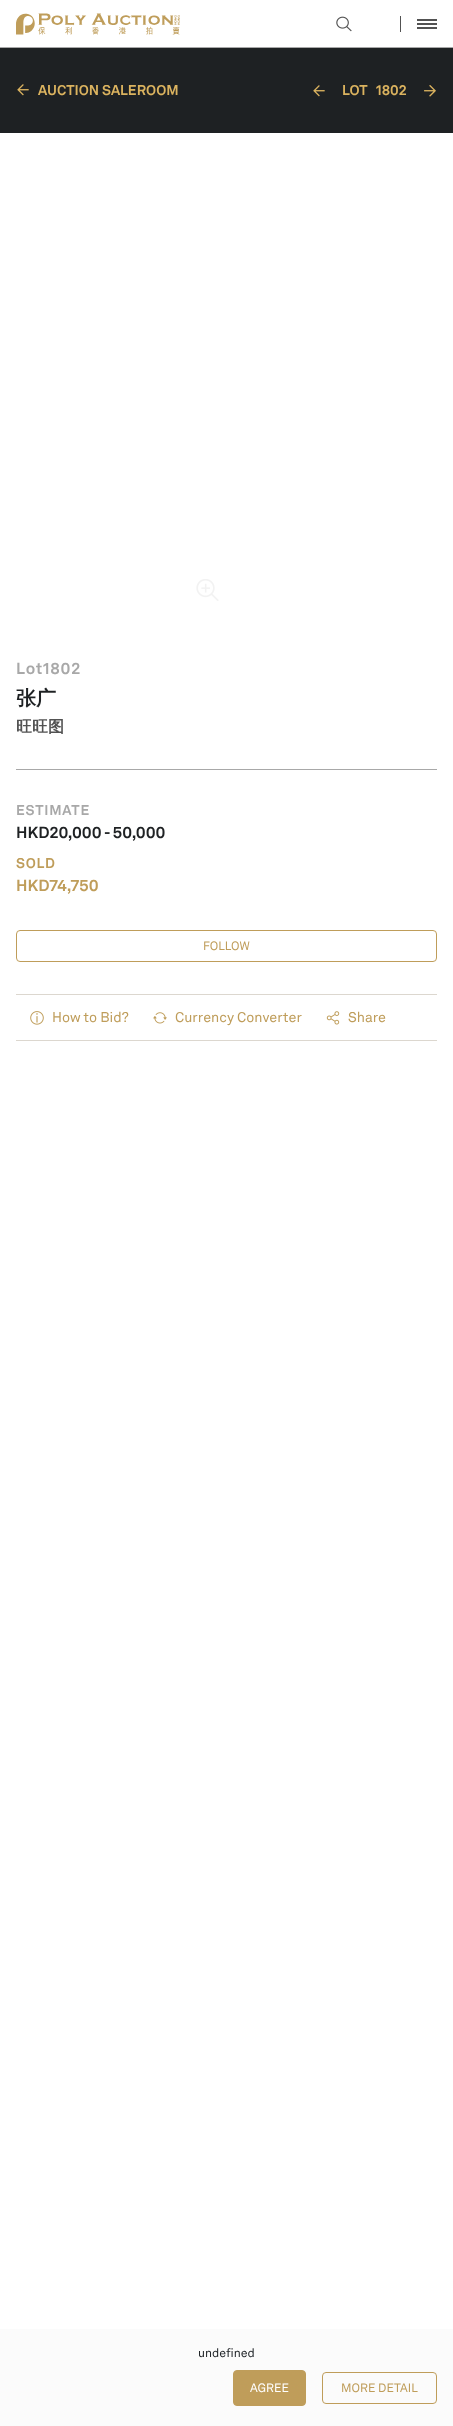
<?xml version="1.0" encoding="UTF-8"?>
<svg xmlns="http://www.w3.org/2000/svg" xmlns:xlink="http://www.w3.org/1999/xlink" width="453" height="2426">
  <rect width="100%" height="100%" fill="#ffffff" />
  <rect y="47" width="453" height="1" fill="#a8a8a8" />
  <image x="16" y="13" width="164" height="22" xlink:href="image1.png" />
  <image x="336" y="16" width="16" height="16" xlink:href="image2.png" />
  <rect x="400" y="16" width="1" height="16" fill="#525252" />
  <rect x="417" y="19" width="20" height="2" fill="#525252" />
  <rect x="417" y="23" width="20" height="2" fill="#525252" />
  <rect x="417" y="27" width="20" height="2" fill="#525252" />
  <rect y="48" width="453" height="85" fill="#1e2123" />
  <image x="17" y="84" width="12" height="12" xlink:href="image3.png" />
  <image x="313" y="85" width="12" height="12" xlink:href="image3.png" />
  <image x="424" y="85" width="12" height="12" xlink:href="image4.png" />
  <image x="196" y="579" width="23" height="22" xlink:href="image5.png" />
  <rect x="16" y="769" width="421" height="1" fill="#a8a8a8" />
  <rect x="16.5" y="930.5" width="420" height="31" rx="3.5" fill="none" stroke="#bf9d5a" />
  <rect x="16" y="994" width="421" height="1" fill="#dcd7cf" />
  <rect x="16" y="1040" width="421" height="1" fill="#dcd7cf" />
  <image x="30" y="1011" width="14" height="14" xlink:href="image6.png" />
  <image x="153" y="1012" width="14" height="12" xlink:href="image7.png" />
  <image x="326" y="1011" width="14" height="14" xlink:href="image8.png" />
  <rect y="2329" width="453" height="97" fill="#fbfbfb" />
  <rect x="233.5" y="2370.5" width="72" height="35" rx="3.5" fill="#bf9d5a" stroke="#bf9d5a" />
  <rect x="322.5" y="2372.5" width="114" height="31" rx="3.5" fill="none" stroke="#bf9d5a" />
  <text x="38" y="95" style="font-family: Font; font-size: 14px; font-weight: bold; fill: #dbb35f">AUCTION SALEROOM</text>
  <text x="342" y="95" style="font-family: Font; font-size: 14px; font-weight: bold; fill: #dbb35f">LOT</text>
  <text x="376" y="95" style="font-family: Font; font-size: 14px; font-weight: bold; fill: #dbb35f">1802</text>
  <text x="16" y="674" style="font-family: Font; font-size: 16px; font-weight: bold; letter-spacing: 0.75px; fill: #a8a8a8">Lot1802</text>
  <text x="16" y="705" style="font-family: WenQuanYi Zen Hei; font-size: 20px; font-weight: bold; fill: #1e2123">张广</text>
  <text x="16" y="732" style="font-family: WenQuanYi Zen Hei; font-size: 16px; font-weight: bold; fill: #525252">旺旺图</text>
  <text x="16" y="815" style="font-family: Font; font-size: 14px; font-weight: bold; letter-spacing: 0.75px; fill: #a8a8a8">ESTIMATE</text>
  <text x="16" y="838" style="font-family: Font; font-size: 16px; font-weight: bold; fill: #1e2123">HKD20,000</text>
  <text x="104" y="838" style="font-family: Font; font-size: 16px; font-weight: bold; fill: #1e2123">- 50,000</text>
  <text x="16" y="868" style="font-family: Font; font-size: 14px; font-weight: bold; letter-spacing: 0.75px; fill: #bf9d5a">SOLD</text>
  <text x="16" y="891" style="font-family: Font; font-size: 16px; font-weight: bold; fill: #bf9d5a">HKD74,750</text>
  <text x="203" y="950" style="font-family: Font; font-size: 12px; fill: #bf9d5a">FOLLOW</text>
  <text x="52" y="1022" style="font-family: Font; font-size: 14px; fill: #bf9d5a">How to Bid?</text>
  <text x="175" y="1022" style="font-family: Font; font-size: 14px; fill: #bf9d5a">Currency Converter</text>
  <text x="348" y="1022" style="font-family: Font; font-size: 14px; fill: #bf9d5a">Share</text>
  <text x="198" y="2357" style="font-family: Font; font-size: 12px; fill: #212529">undefined</text>
  <text x="250" y="2392" style="font-family: Font; font-size: 12px; fill: #ffffff">AGREE</text>
  <text x="341" y="2392" style="font-family: Font; font-size: 12px; fill: #bf9d5a">MORE DETAIL</text>
</svg>
